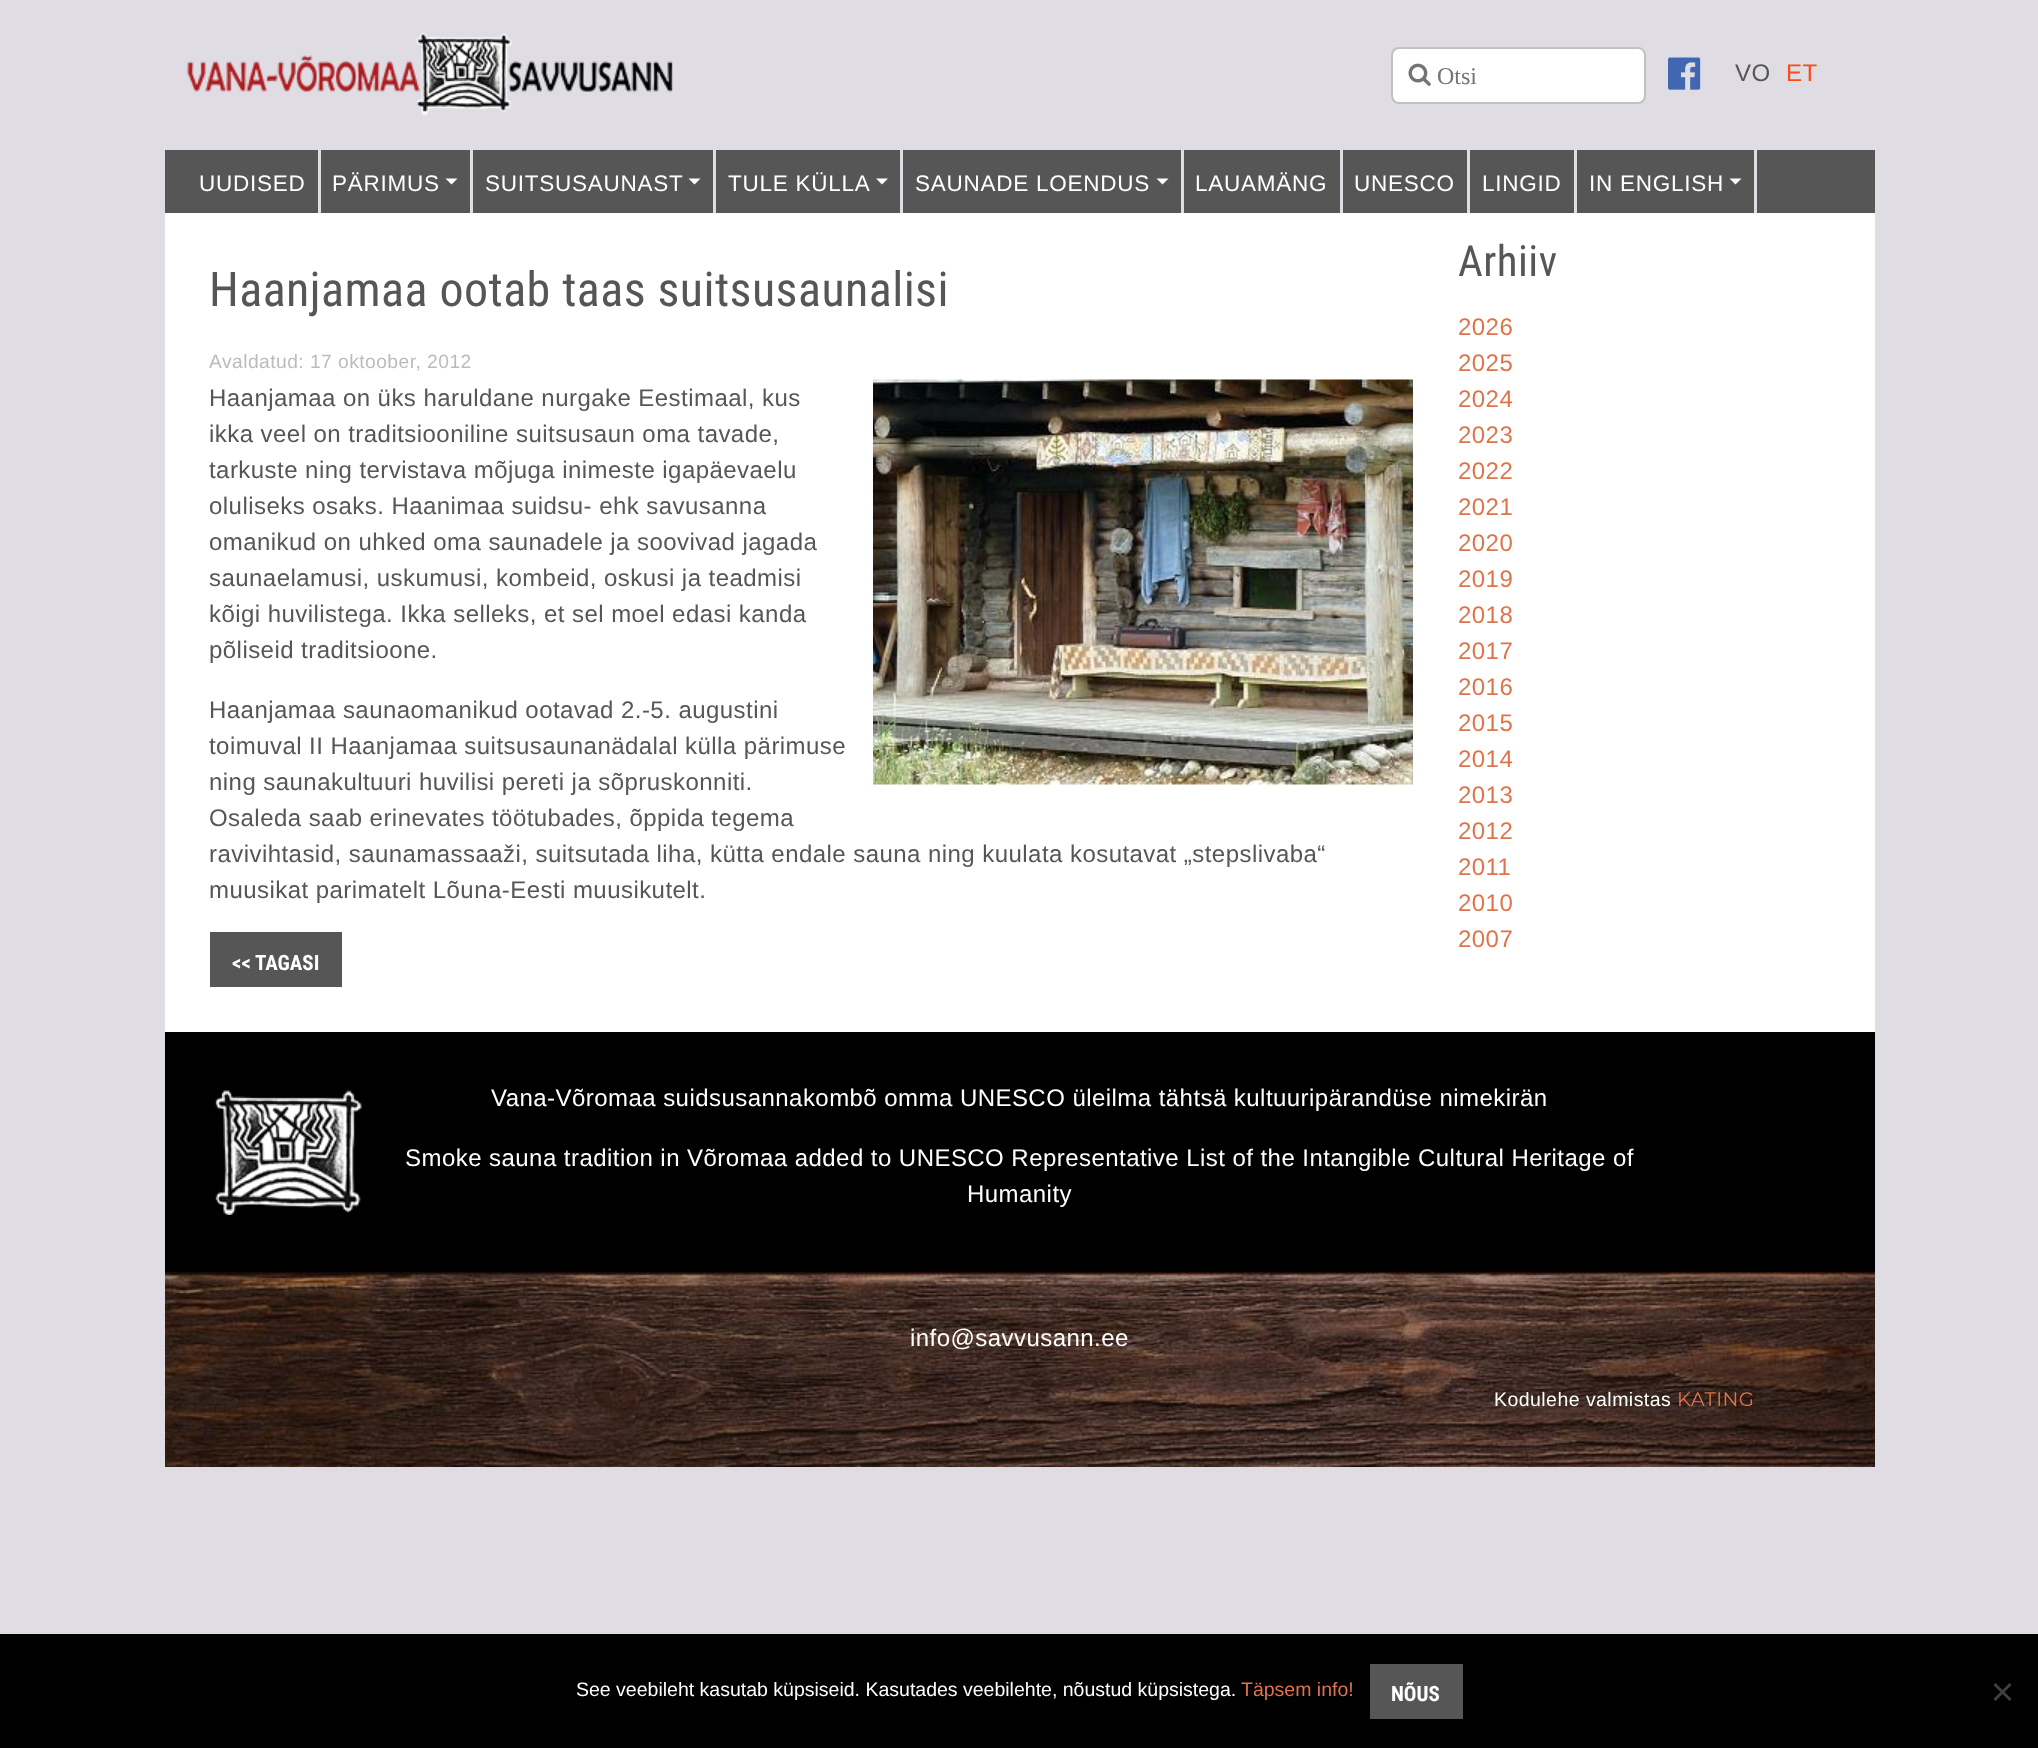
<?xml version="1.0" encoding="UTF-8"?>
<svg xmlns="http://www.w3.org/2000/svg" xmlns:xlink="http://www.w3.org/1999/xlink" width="2038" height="1748">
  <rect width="100%" height="100%" fill="#dfdce3" />
  <image x="187" y="33" width="486" height="83" xlink:href="image1.png" />
  <rect x="1392" y="48" width="253" height="55" rx="7" fill="#ffffff" stroke="#c0c1c4" stroke-width="2" />
  <image x="1408" y="63" width="23" height="23" xlink:href="image2.png" />
  <image x="1668" y="57" width="33" height="33" xlink:href="image3.png" />
  <rect x="165" y="150" width="1710" height="63" fill="#565656" />
  <rect x="318" y="150" width="3" height="63" fill="#dfdce3" />
  <rect x="470" y="150" width="3" height="63" fill="#dfdce3" />
  <path d="M 445.5 178.5 h 12 l -6 6 z" fill="#ffffff" />
  <rect x="713" y="150" width="3" height="63" fill="#dfdce3" />
  <path d="M 688.5 178.5 h 12 l -6 6 z" fill="#ffffff" />
  <rect x="900" y="150" width="3" height="63" fill="#dfdce3" />
  <path d="M 876 178.5 h 12 l -6 6 z" fill="#ffffff" />
  <rect x="1181" y="150" width="3" height="63" fill="#dfdce3" />
  <path d="M 1156.5 178.5 h 12 l -6 6 z" fill="#ffffff" />
  <rect x="1340" y="150" width="3" height="63" fill="#dfdce3" />
  <rect x="1467" y="150" width="3" height="63" fill="#dfdce3" />
  <rect x="1574" y="150" width="3" height="63" fill="#dfdce3" />
  <rect x="1754" y="150" width="3" height="63" fill="#dfdce3" />
  <path d="M 1729.5 178.5 h 12 l -6 6 z" fill="#ffffff" />
  <rect x="165" y="213" width="1710" height="819" fill="#ffffff" />
  <image x="873" y="379" width="540" height="406" xlink:href="image4.png" />
  <rect x="210" y="932" width="132" height="55" fill="#565656" />
  <rect x="165" y="1032" width="1710" height="240" fill="#000000" />
  <image x="215" y="1090" width="147" height="125" xlink:href="image5.png" />
  <image x="165" y="1272" width="1710" height="195" xlink:href="image6.png" />
  <rect y="1634" width="2038" height="114" fill="#000000" />
  <rect x="1370" y="1664" width="93" height="55" fill="#565656" />
  <path d="M 2009.5 1683 l 2 2 l -16 16 l -2 -2 z" fill="#404040" />
  <path d="M 1993.5 1685 l 2 -2 l 16 16 l -2 2 z" fill="#404040" />
  <text x="1437" y="84" style="font-family: Liberation Serif; font-size: 24px; fill: #757575">Otsi</text>
  <text x="1735" y="81" style="font-family: Liberation Sans; font-size: 24px; letter-spacing: 0.45px; fill: #565656">VO</text>
  <text x="1786" y="81" style="font-family: Liberation Sans; font-size: 24px; letter-spacing: 0.45px; fill: #fc4a1a">ET</text>
  <text x="199" y="191" style="font-family: Liberation Sans; font-size: 22.5px; letter-spacing: 0.75px; fill: #ffffff">UUDISED</text>
  <text x="332" y="191" style="font-family: Liberation Sans; font-size: 22.5px; letter-spacing: 0.75px; fill: #ffffff">PÄRIMUS</text>
  <text x="485" y="191" style="font-family: Liberation Sans; font-size: 22.5px; letter-spacing: 0.75px; fill: #ffffff">SUITSUSAUNAST</text>
  <text x="728" y="191" style="font-family: Liberation Sans; font-size: 22.5px; letter-spacing: 0.75px; fill: #ffffff">TULE KÜLLA</text>
  <text x="915" y="191" style="font-family: Liberation Sans; font-size: 22.5px; letter-spacing: 0.75px; fill: #ffffff">SAUNADE LOENDUS</text>
  <text x="1195" y="191" style="font-family: Liberation Sans; font-size: 22.5px; letter-spacing: 0.75px; fill: #ffffff">LAUAMÄNG</text>
  <text x="1354" y="191" style="font-family: Liberation Sans; font-size: 22.5px; letter-spacing: 0.75px; fill: #ffffff">UNESCO</text>
  <text x="1482" y="191" style="font-family: Liberation Sans; font-size: 22.5px; letter-spacing: 0.75px; fill: #ffffff">LINGID</text>
  <text x="1589" y="191" style="font-family: Liberation Sans; font-size: 22.5px; letter-spacing: 0.75px; fill: #ffffff">IN ENGLISH</text>
  <text x="209" y="306" style="font-family: Roboto Condensed; font-size: 48px; letter-spacing: 0.45px; fill: #565656">Haanjamaa ootab taas suitsusaunalisi</text>
  <text x="209" y="368" style="font-family: Liberation Sans; font-size: 19.25px; letter-spacing: 0.45px; fill: #bbbbbb">Avaldatud: 17 oktoober, 2012</text>
  <text x="209" y="406" style="font-family: Liberation Sans; font-size: 24px; letter-spacing: 0.45px; fill: #565656">Haanjamaa on üks haruldane nurgake Eestimaal, kus</text>
  <text x="209" y="442" style="font-family: Liberation Sans; font-size: 24px; letter-spacing: 0.45px; fill: #565656">ikka veel on traditsiooniline suitsusaun oma tavade,</text>
  <text x="209" y="478" style="font-family: Liberation Sans; font-size: 24px; letter-spacing: 0.45px; fill: #565656">tarkuste ning tervistava mõjuga inimeste igapäevaelu</text>
  <text x="209" y="514" style="font-family: Liberation Sans; font-size: 24px; letter-spacing: 0.45px; fill: #565656">oluliseks osaks. Haanimaa suidsu- ehk savusanna</text>
  <text x="209" y="550" style="font-family: Liberation Sans; font-size: 24px; letter-spacing: 0.45px; fill: #565656">omanikud on uhked oma saunadele ja soovivad jagada</text>
  <text x="209" y="586" style="font-family: Liberation Sans; font-size: 24px; letter-spacing: 0.45px; fill: #565656">saunaelamusi, uskumusi, kombeid, oskusi ja teadmisi</text>
  <text x="209" y="622" style="font-family: Liberation Sans; font-size: 24px; letter-spacing: 0.45px; fill: #565656">kõigi huvilistega. Ikka selleks, et sel moel edasi kanda</text>
  <text x="209" y="658" style="font-family: Liberation Sans; font-size: 24px; letter-spacing: 0.45px; fill: #565656">põliseid traditsioone.</text>
  <text x="209" y="718" style="font-family: Liberation Sans; font-size: 24px; letter-spacing: 0.45px; fill: #565656">Haanjamaa saunaomanikud ootavad 2.-5. augustini</text>
  <text x="209" y="754" style="font-family: Liberation Sans; font-size: 24px; letter-spacing: 0.45px; fill: #565656">toimuval II Haanjamaa suitsusaunanädalal külla pärimuse</text>
  <text x="209" y="790" style="font-family: Liberation Sans; font-size: 24px; letter-spacing: 0.45px; fill: #565656">ning saunakultuuri huvilisi pereti ja sõpruskonniti.</text>
  <text x="209" y="826" style="font-family: Liberation Sans; font-size: 24px; letter-spacing: 0.45px; fill: #565656">Osaleda saab erinevates töötubades, õppida tegema</text>
  <text x="209" y="862" style="font-family: Liberation Sans; font-size: 24px; letter-spacing: 0.45px; fill: #565656">ravivihtasid, saunamassaaži, suitsutada liha, kütta endale sauna ning kuulata kosutavat „stepslivaba“</text>
  <text x="209" y="898" style="font-family: Liberation Sans; font-size: 24px; letter-spacing: 0.45px; fill: #565656">muusikat parimatelt Lõuna-Eesti muusikutelt.</text>
  <text x="232" y="970" style="font-family: Roboto Condensed; font-size: 21px; font-weight: bold; fill: #ffffff">&lt;&lt; TAGASI</text>
  <text x="1458" y="276" style="font-family: Roboto Condensed; font-size: 43px; letter-spacing: 0.45px; fill: #565656">Arhiiv</text>
  <text x="1458" y="335" style="font-family: Liberation Sans; font-size: 24px; letter-spacing: 0.45px; fill: #df744a">2026</text>
  <text x="1458" y="371" style="font-family: Liberation Sans; font-size: 24px; letter-spacing: 0.45px; fill: #df744a">2025</text>
  <text x="1458" y="407" style="font-family: Liberation Sans; font-size: 24px; letter-spacing: 0.45px; fill: #df744a">2024</text>
  <text x="1458" y="443" style="font-family: Liberation Sans; font-size: 24px; letter-spacing: 0.45px; fill: #df744a">2023</text>
  <text x="1458" y="479" style="font-family: Liberation Sans; font-size: 24px; letter-spacing: 0.45px; fill: #df744a">2022</text>
  <text x="1458" y="515" style="font-family: Liberation Sans; font-size: 24px; letter-spacing: 0.45px; fill: #df744a">2021</text>
  <text x="1458" y="551" style="font-family: Liberation Sans; font-size: 24px; letter-spacing: 0.45px; fill: #df744a">2020</text>
  <text x="1458" y="587" style="font-family: Liberation Sans; font-size: 24px; letter-spacing: 0.45px; fill: #df744a">2019</text>
  <text x="1458" y="623" style="font-family: Liberation Sans; font-size: 24px; letter-spacing: 0.45px; fill: #df744a">2018</text>
  <text x="1458" y="659" style="font-family: Liberation Sans; font-size: 24px; letter-spacing: 0.45px; fill: #df744a">2017</text>
  <text x="1458" y="695" style="font-family: Liberation Sans; font-size: 24px; letter-spacing: 0.45px; fill: #df744a">2016</text>
  <text x="1458" y="731" style="font-family: Liberation Sans; font-size: 24px; letter-spacing: 0.45px; fill: #df744a">2015</text>
  <text x="1458" y="767" style="font-family: Liberation Sans; font-size: 24px; letter-spacing: 0.45px; fill: #df744a">2014</text>
  <text x="1458" y="803" style="font-family: Liberation Sans; font-size: 24px; letter-spacing: 0.45px; fill: #df744a">2013</text>
  <text x="1458" y="839" style="font-family: Liberation Sans; font-size: 24px; letter-spacing: 0.45px; fill: #df744a">2012</text>
  <text x="1458" y="875" style="font-family: Liberation Sans; font-size: 24px; letter-spacing: 0.45px; fill: #df744a">2011</text>
  <text x="1458" y="911" style="font-family: Liberation Sans; font-size: 24px; letter-spacing: 0.45px; fill: #df744a">2010</text>
  <text x="1458" y="947" style="font-family: Liberation Sans; font-size: 24px; letter-spacing: 0.45px; fill: #df744a">2007</text>
  <text x="491" y="1106" style="font-family: Liberation Sans; font-size: 24px; letter-spacing: 0.45px; fill: #ffffff">Vana-Võromaa suidsusannakombõ omma UNESCO üleilma tähtsä kultuuripärandüse nimekirän</text>
  <text x="405" y="1166" style="font-family: Liberation Sans; font-size: 24px; letter-spacing: 0.45px; fill: #ffffff">Smoke sauna tradition in Võromaa added to UNESCO Representative List of the Intangible Cultural Heritage of</text>
  <text x="967" y="1202" style="font-family: Liberation Sans; font-size: 24px; letter-spacing: 0.45px; fill: #ffffff">Humanity</text>
  <text x="910" y="1346" style="font-family: Liberation Sans; font-size: 24px; letter-spacing: 0.45px; fill: #ffffff">info@savvusann.ee</text>
  <text x="1494" y="1406" style="font-family: Liberation Sans; font-size: 19.5px; letter-spacing: 0.45px; fill: #ffffff">Kodulehe valmistas</text>
  <text x="1677" y="1406" style="font-family: Montserrat; font-size: 19.5px; font-weight: 100; letter-spacing: 0.45px; fill: #df744a">KATING</text>
  <text x="576" y="1696" style="font-family: Liberation Sans; font-size: 19.5px; fill: #ffffff">See veebileht kasutab küpsiseid. Kasutades veebilehte, nõustud küpsistega.</text>
  <text x="1241" y="1696" style="font-family: Liberation Sans; font-size: 19.5px; fill: #df744a">Täpsem info!</text>
  <text x="1391" y="1701" style="font-family: Roboto Condensed; font-size: 21px; font-weight: bold; fill: #ffffff">NÕUS</text>
</svg>
